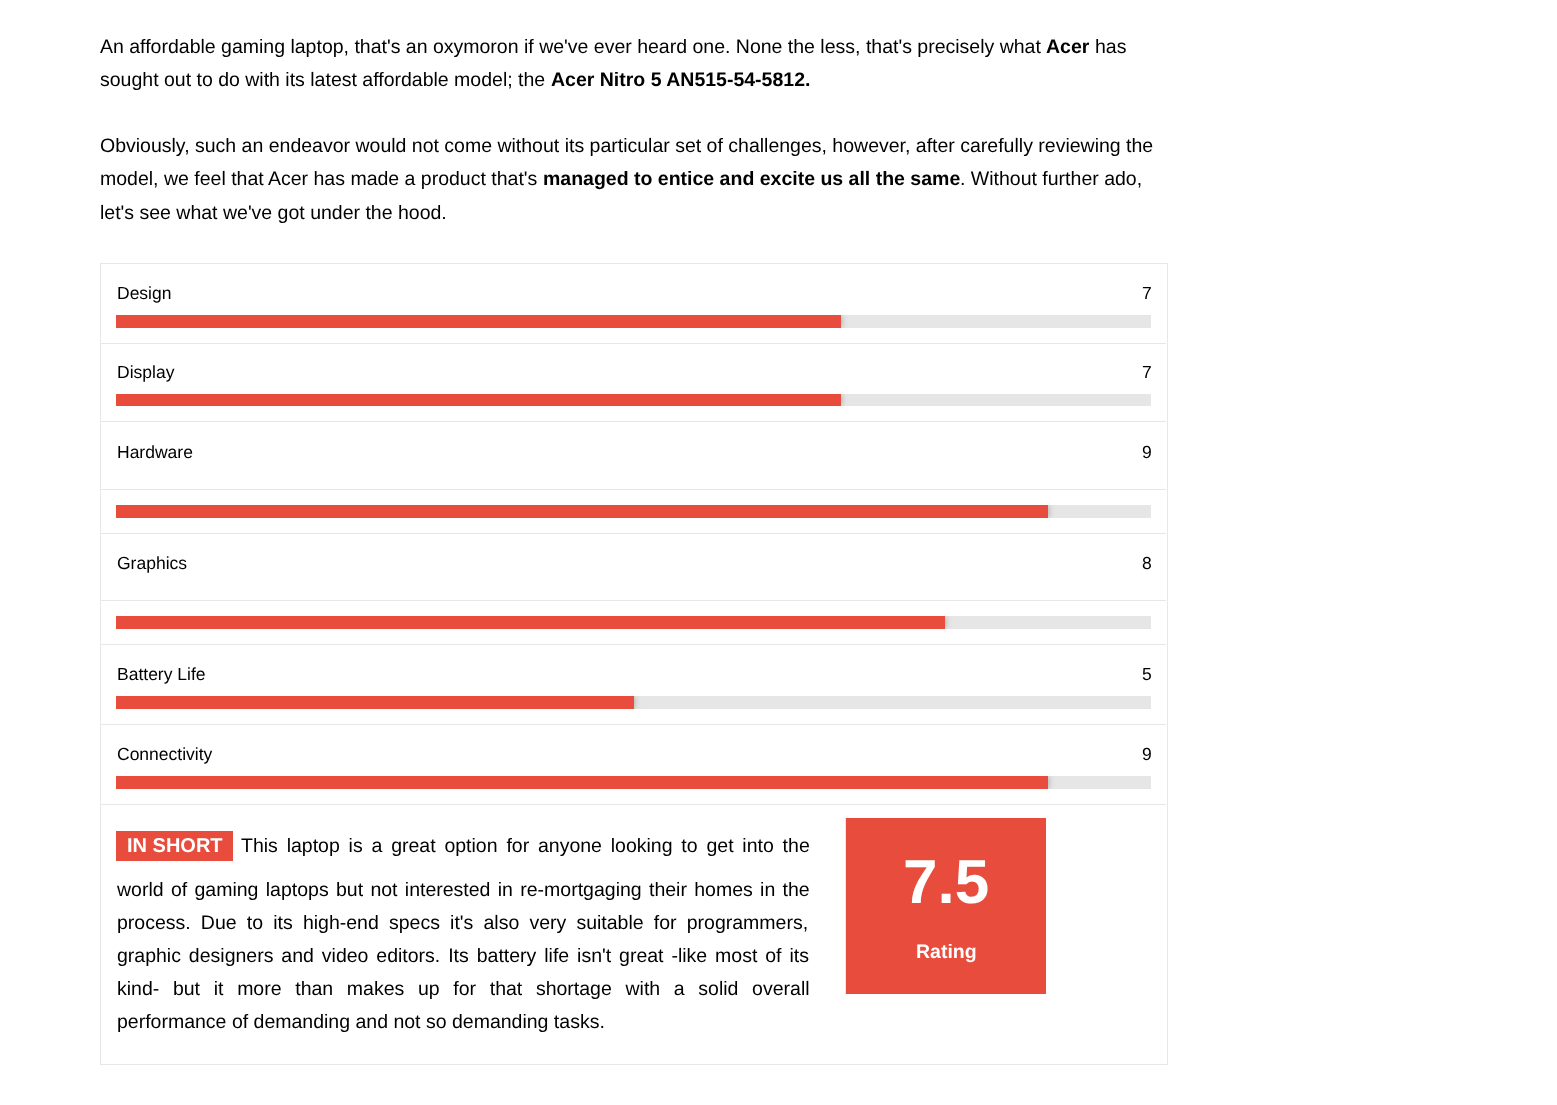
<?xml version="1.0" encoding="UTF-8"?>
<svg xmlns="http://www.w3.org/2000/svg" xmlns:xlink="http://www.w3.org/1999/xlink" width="1557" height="1105">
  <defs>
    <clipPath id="clip1"><rect x="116" y="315" width="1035" height="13" /></clipPath>
    <clipPath id="clip2"><rect x="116" y="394" width="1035" height="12" /></clipPath>
    <clipPath id="clip3"><rect x="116" y="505" width="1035" height="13" /></clipPath>
    <clipPath id="clip4"><rect x="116" y="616" width="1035" height="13" /></clipPath>
    <clipPath id="clip5"><rect x="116" y="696" width="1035" height="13" /></clipPath>
    <clipPath id="clip6"><rect x="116" y="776" width="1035" height="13" /></clipPath>
  </defs>
  <rect width="100%" height="100%" fill="#ffffff" />
  <rect x="100.5" y="263.5" width="1067" height="801" fill="none" stroke="#e7e7e7" />
  <rect x="101" y="343" width="1065" height="1" fill="#e7e7e7" />
  <rect x="841" y="315" width="310" height="13" fill="#e6e6e6" />
  <g clip-path="url(#clip1)">
    <rect x="116" y="315" width="725" height="13" fill="#000000" fill-opacity="0.3" filter="blur(3px)" />
  </g>
  <rect x="116" y="315" width="725" height="13" fill="#e74c3c" />
  <rect x="101" y="421" width="1065" height="1" fill="#e7e7e7" />
  <rect x="841" y="394" width="310" height="12" fill="#e6e6e6" />
  <g clip-path="url(#clip2)">
    <rect x="116" y="394" width="725" height="12" fill="#000000" fill-opacity="0.3" filter="blur(3px)" />
  </g>
  <rect x="116" y="394" width="725" height="12" fill="#e74c3c" />
  <rect x="101" y="489" width="1065" height="1" fill="#e7e7e7" />
  <rect x="101" y="533" width="1065" height="1" fill="#e7e7e7" />
  <rect x="1048" y="505" width="103" height="13" fill="#e6e6e6" />
  <g clip-path="url(#clip3)">
    <rect x="116" y="505" width="932" height="13" fill="#000000" fill-opacity="0.3" filter="blur(3px)" />
  </g>
  <rect x="116" y="505" width="932" height="13" fill="#e74c3c" />
  <rect x="101" y="600" width="1065" height="1" fill="#e7e7e7" />
  <rect x="101" y="644" width="1065" height="1" fill="#e7e7e7" />
  <rect x="945" y="616" width="206" height="13" fill="#e6e6e6" />
  <g clip-path="url(#clip4)">
    <rect x="116" y="616" width="829" height="13" fill="#000000" fill-opacity="0.3" filter="blur(3px)" />
  </g>
  <rect x="116" y="616" width="829" height="13" fill="#e74c3c" />
  <rect x="101" y="724" width="1065" height="1" fill="#e7e7e7" />
  <rect x="634" y="696" width="517" height="13" fill="#e6e6e6" />
  <g clip-path="url(#clip5)">
    <rect x="116" y="696" width="518" height="13" fill="#000000" fill-opacity="0.3" filter="blur(3px)" />
  </g>
  <rect x="116" y="696" width="518" height="13" fill="#e74c3c" />
  <rect x="101" y="804" width="1065" height="1" fill="#e7e7e7" />
  <rect x="1048" y="776" width="103" height="13" fill="#e6e6e6" />
  <g clip-path="url(#clip6)">
    <rect x="116" y="776" width="932" height="13" fill="#000000" fill-opacity="0.3" filter="blur(3px)" />
  </g>
  <rect x="116" y="776" width="932" height="13" fill="#e74c3c" />
  <rect x="116" y="831" width="117" height="30" fill="#e74c3c" />
  <rect x="846" y="818" width="200" height="176" fill="#e74c3c" />
  <rect x="845" y="818" width="1" height="176" fill="#e7e7e7" />
  <text x="100" y="53" style="font-family: Liberation Sans; font-size: 19.5px; fill: #000000">An affordable gaming laptop, that's an oxymoron if we've ever heard one. None the less, that's precisely what</text>
  <text x="1046" y="53" style="font-family: Liberation Sans; font-size: 19.5px; font-weight: bold; fill: #000000">Acer</text>
  <text x="1095" y="53" style="font-family: Liberation Sans; font-size: 19.5px; fill: #000000">has</text>
  <text x="100" y="86" style="font-family: Liberation Sans; font-size: 19.5px; fill: #000000">sought out to do with its latest affordable model; the</text>
  <text x="551" y="86" style="font-family: Liberation Sans; font-size: 19.5px; font-weight: bold; fill: #000000">Acer Nitro 5 AN515-54-5812.</text>
  <text x="100" y="152" style="font-family: Liberation Sans; font-size: 19.5px; fill: #000000">Obviously, such an endeavor would not come without its particular set of challenges, however, after carefully reviewing the</text>
  <text x="100" y="185" style="font-family: Liberation Sans; font-size: 19.5px; fill: #000000">model, we feel that Acer has made a product that's</text>
  <text x="543" y="185" style="font-family: Liberation Sans; font-size: 19.5px; font-weight: bold; fill: #000000">managed to entice and excite us all the same</text>
  <text x="960" y="185" style="font-family: Liberation Sans; font-size: 19.5px; fill: #000000">. Without further ado,</text>
  <text x="100" y="219" style="font-family: Liberation Sans; font-size: 19.5px; fill: #000000">let's see what we've got under the hood.</text>
  <text x="117" y="299" style="font-family: Liberation Sans; font-size: 17.5px; fill: #000000">Design</text>
  <text x="1142" y="299" style="font-family: Liberation Sans; font-size: 17.5px; fill: #000000">7</text>
  <text x="117" y="378" style="font-family: Liberation Sans; font-size: 17.5px; fill: #000000">Display</text>
  <text x="1142" y="378" style="font-family: Liberation Sans; font-size: 17.5px; fill: #000000">7</text>
  <text x="117" y="458" style="font-family: Liberation Sans; font-size: 17.5px; fill: #000000">Hardware</text>
  <text x="1142" y="458" style="font-family: Liberation Sans; font-size: 17.5px; fill: #000000">9</text>
  <text x="117" y="569" style="font-family: Liberation Sans; font-size: 17.5px; fill: #000000">Graphics</text>
  <text x="1142" y="569" style="font-family: Liberation Sans; font-size: 17.5px; fill: #000000">8</text>
  <text x="117" y="680" style="font-family: Liberation Sans; font-size: 17.5px; fill: #000000">Battery Life</text>
  <text x="1142" y="680" style="font-family: Liberation Sans; font-size: 17.5px; fill: #000000">5</text>
  <text x="117" y="760" style="font-family: Liberation Sans; font-size: 17.5px; fill: #000000">Connectivity</text>
  <text x="1142" y="760" style="font-family: Liberation Sans; font-size: 17.5px; fill: #000000">9</text>
  <text x="127" y="852" style="font-family: Liberation Sans; font-size: 20px; font-weight: bold; fill: #ffffff">IN SHORT</text>
  <text x="241" y="852" word-spacing="3.4" style="font-family: Liberation Sans; font-size: 19.5px; fill: #000000">This laptop is a great option for anyone looking to get into the</text>
  <text x="117" y="896" word-spacing="1.9" style="font-family: Liberation Sans; font-size: 19.5px; fill: #000000">world of gaming laptops but not interested in re-mortgaging their homes in the</text>
  <text x="117" y="929" word-spacing="4.75" style="font-family: Liberation Sans; font-size: 19.5px; fill: #000000">process. Due to its high-end specs it's also very suitable for programmers,</text>
  <text x="117" y="962" word-spacing="2.5" style="font-family: Liberation Sans; font-size: 19.5px; fill: #000000">graphic designers and video editors. Its battery life isn't great -like most of its</text>
  <text x="117" y="995" word-spacing="8.25" style="font-family: Liberation Sans; font-size: 19.5px; fill: #000000">kind- but it more than makes up for that shortage with a solid overall</text>
  <text x="117" y="1028" style="font-family: Liberation Sans; font-size: 19.5px; fill: #000000">performance of demanding and not so demanding tasks.</text>
  <text x="903" y="903" style="font-family: Liberation Sans; font-size: 62px; font-weight: bold; fill: #ffffff">7.5</text>
  <text x="916" y="958" style="font-family: Liberation Sans; font-size: 19.5px; font-weight: bold; fill: #ffffff">Rating</text>
</svg>
